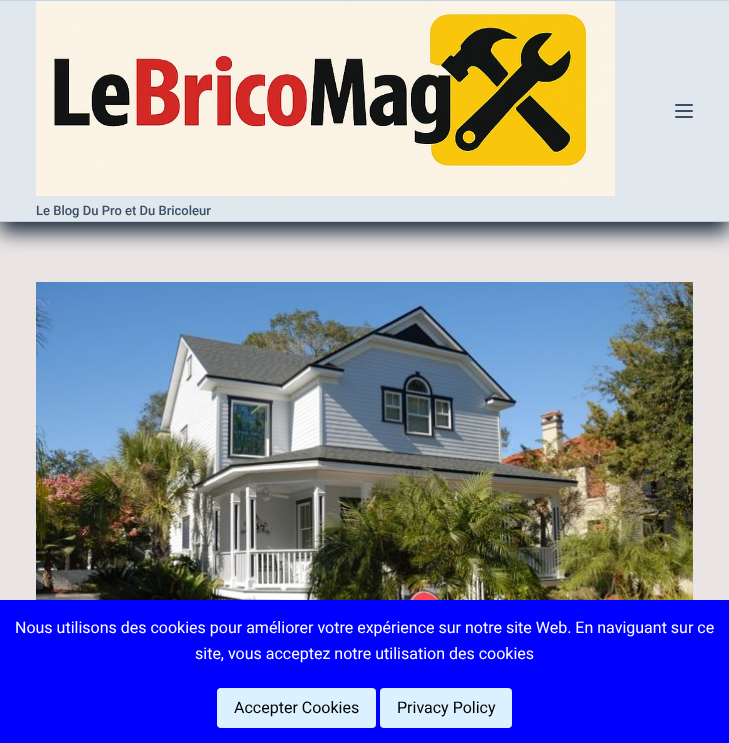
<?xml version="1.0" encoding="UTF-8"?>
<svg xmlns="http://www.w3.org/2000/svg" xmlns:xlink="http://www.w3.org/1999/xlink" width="729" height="743">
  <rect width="100%" height="100%" fill="#ebe4e4" />
  <rect y="10" width="729" height="222" fill="#192a3d" filter="blur(10px)" />
  <rect y="1" width="729" height="220" fill="#e1e8ed" />
  <rect width="729" height="1" fill="#c1d5e8" />
  <rect y="221" width="729" height="1" fill="#c7cfd4" />
  <rect x="675" y="104" width="18" height="2" rx="1" fill="#3a4f66" />
  <rect x="675" y="110" width="18" height="2" rx="1" fill="#3a4f66" />
  <rect x="675" y="116" width="18" height="2" rx="1" fill="#3a4f66" />
  <image x="36" y="1" width="579" height="195" xlink:href="image1.png" />
  <image x="36" y="282" width="657" height="318" xlink:href="image2.png" />
  <rect y="600" width="729" height="143" fill="#0000ff" />
  <rect x="217" y="688" width="159" height="40" rx="4" fill="#dcf1ff" />
  <rect x="380" y="688" width="132" height="40" rx="4" fill="#dcf1ff" />
  <text x="36" y="215" style="font-family: Roboto; font-size: 13px; font-weight: 500; fill: #3a4f66">Le Blog Du Pro et Du Bricoleur</text>
  <text x="15" y="633" style="font-family: Roboto; font-size: 16px; fill: #ffffff">Nous utilisons des cookies pour améliorer votre expérience sur notre site Web. En naviguant sur ce</text>
  <text x="195" y="659" style="font-family: Roboto; font-size: 16px; fill: #ffffff">site, vous acceptez notre utilisation des cookies</text>
  <text x="234" y="713" style="font-family: Roboto; font-size: 16px; fill: #000000">Accepter Cookies</text>
  <text x="397" y="713" style="font-family: Roboto; font-size: 16px; fill: #000000">Privacy Policy</text>
</svg>
